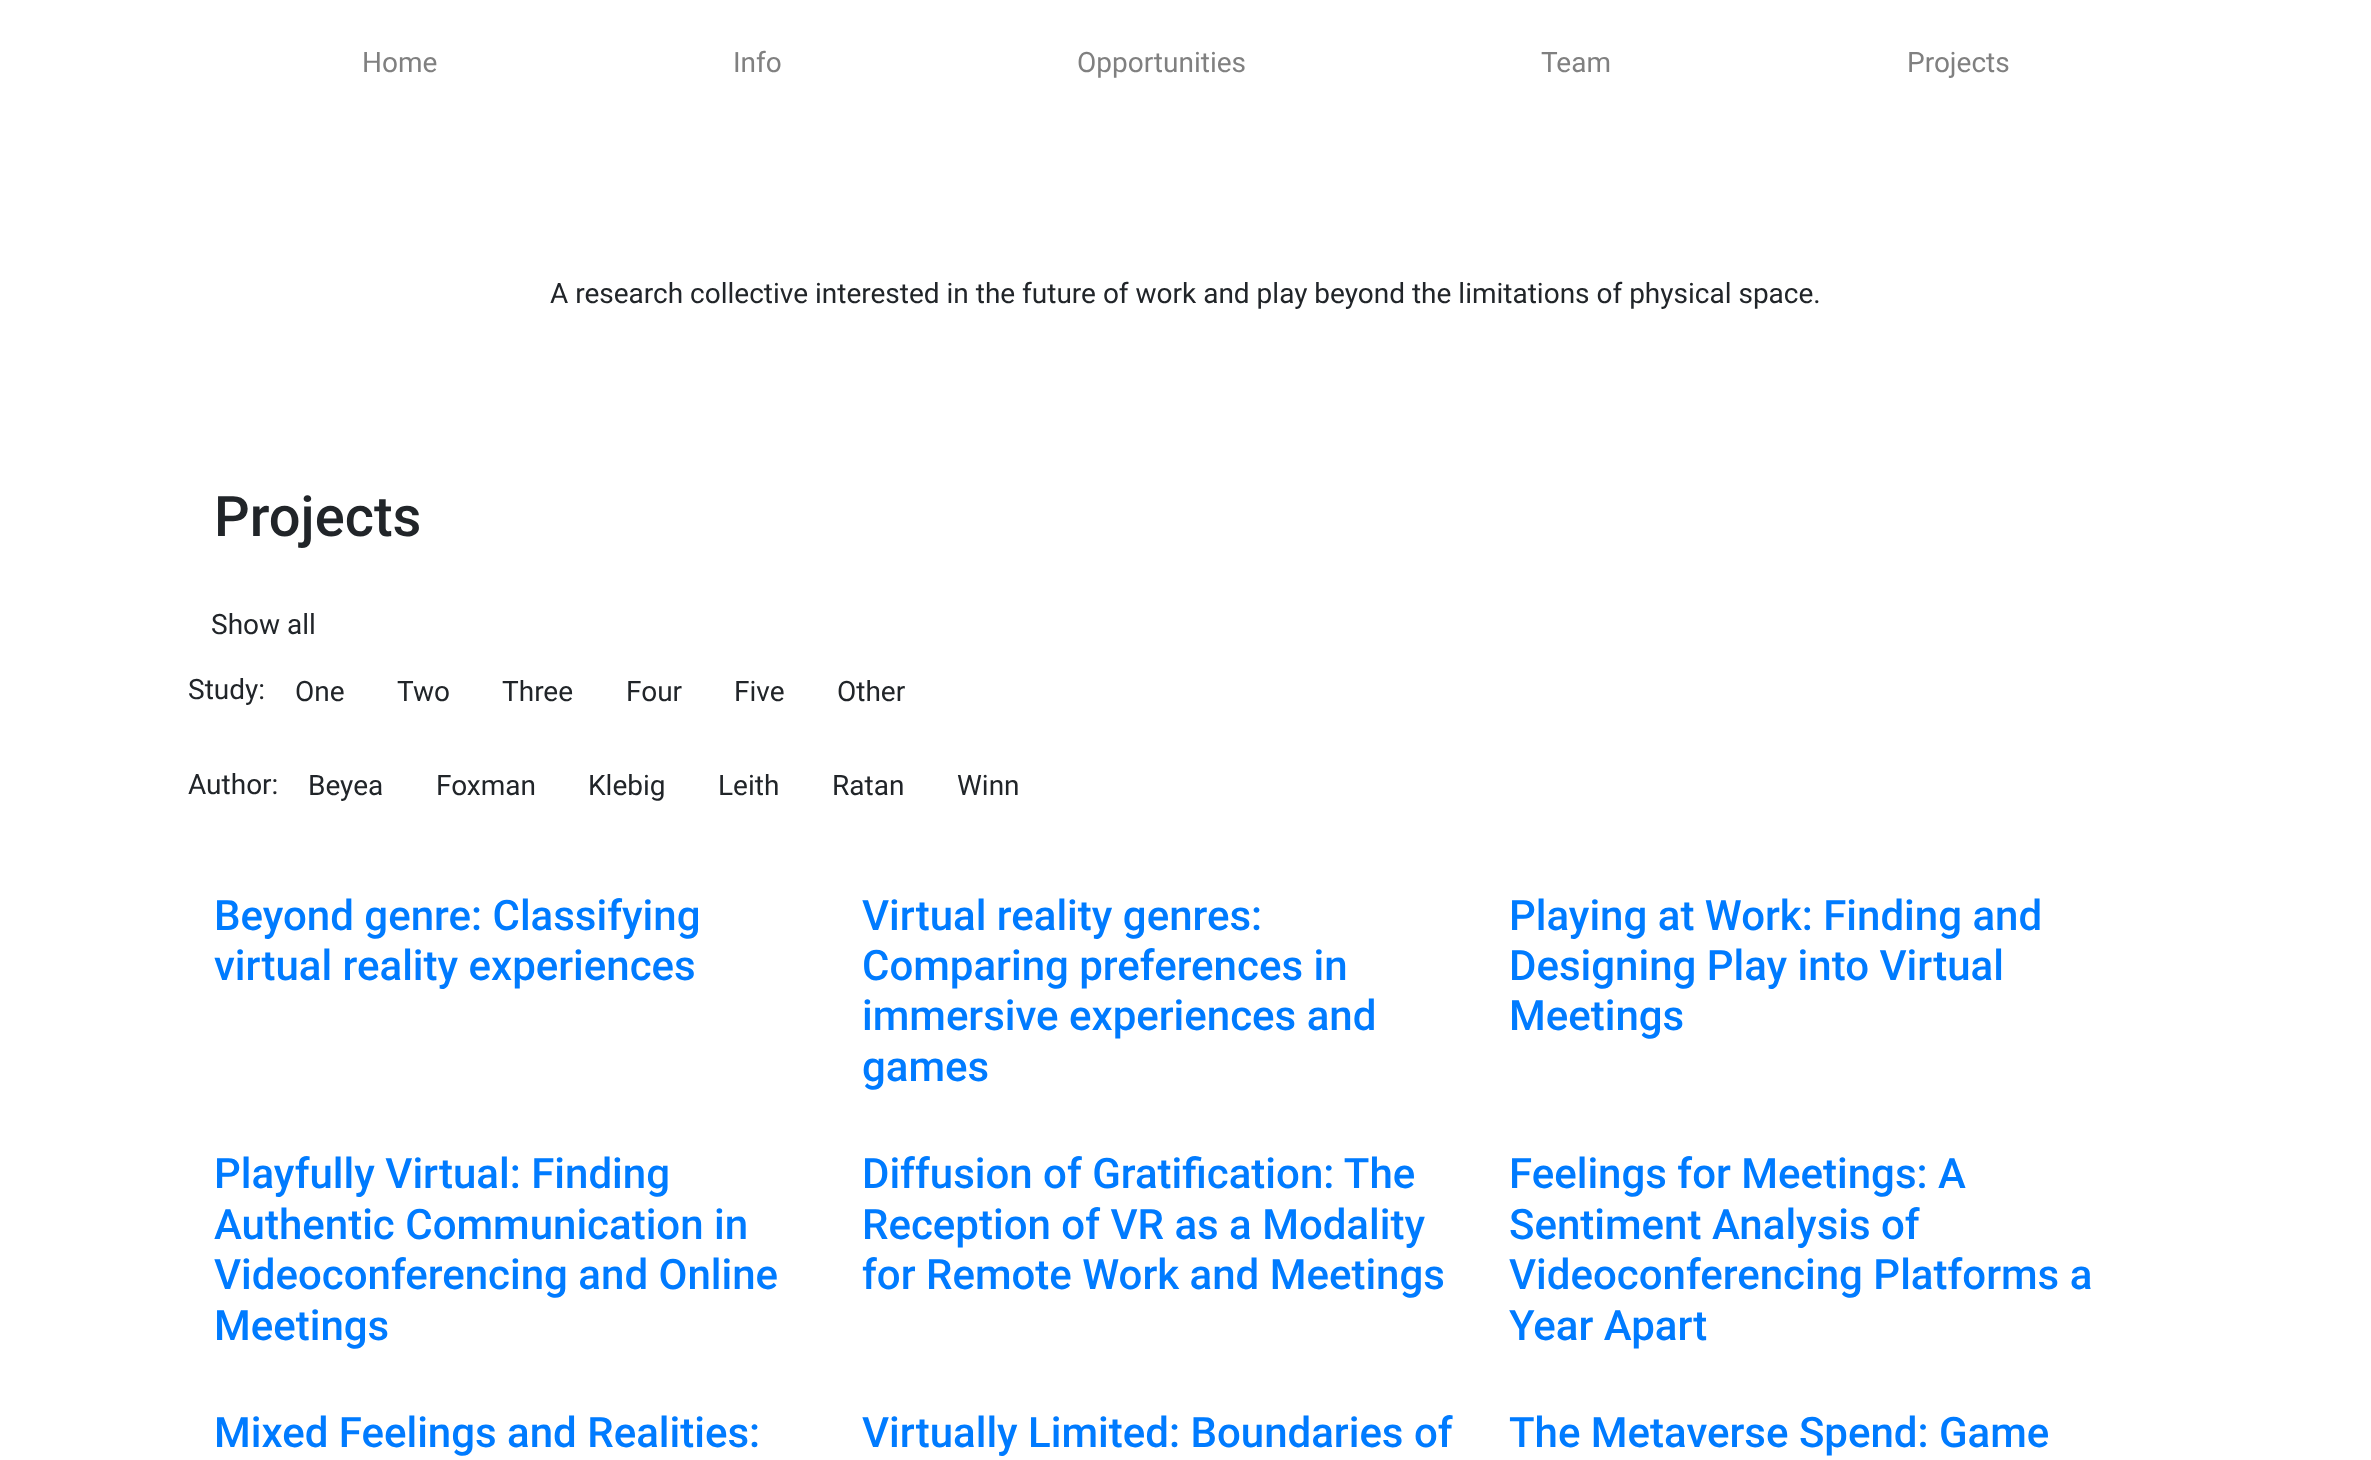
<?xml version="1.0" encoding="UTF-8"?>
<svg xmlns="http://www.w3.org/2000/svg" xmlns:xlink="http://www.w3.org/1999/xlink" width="2371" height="1460">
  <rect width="100%" height="100%" fill="#ffffff" />
  <text x="362" y="72" style="font-family: Roboto; font-size: 28px; fill: #808080">Home</text>
  <text x="733" y="72" style="font-family: Roboto; font-size: 28px; fill: #808080">Info</text>
  <text x="1077" y="72" style="font-family: Roboto; font-size: 28px; fill: #808080">Opportunities</text>
  <text x="1541" y="72" style="font-family: Roboto; font-size: 28px; fill: #808080">Team</text>
  <text x="1907" y="72" style="font-family: Roboto; font-size: 28px; fill: #808080">Projects</text>
  <text x="550" y="303" style="font-family: Roboto; font-size: 28px; fill: #212529">A research collective interested in the future of work and play beyond the limitations of physical space.</text>
  <text x="214" y="536" style="font-family: Roboto; font-size: 56px; font-weight: 500; fill: #212529">Projects</text>
  <text x="211" y="634" style="font-family: Roboto; font-size: 28px; fill: #212529">Show all</text>
  <text x="188" y="699" style="font-family: Roboto; font-size: 28px; fill: #212529">Study:</text>
  <text x="295" y="701" style="font-family: Roboto; font-size: 28px; fill: #212529">One</text>
  <text x="397" y="701" style="font-family: Roboto; font-size: 28px; fill: #212529">Two</text>
  <text x="502" y="701" style="font-family: Roboto; font-size: 28px; fill: #212529">Three</text>
  <text x="626" y="701" style="font-family: Roboto; font-size: 28px; fill: #212529">Four</text>
  <text x="734" y="701" style="font-family: Roboto; font-size: 28px; fill: #212529">Five</text>
  <text x="837" y="701" style="font-family: Roboto; font-size: 28px; fill: #212529">Other</text>
  <text x="188" y="794" style="font-family: Roboto; font-size: 28px; fill: #212529">Author:</text>
  <text x="308" y="795" style="font-family: Roboto; font-size: 28px; fill: #212529">Beyea</text>
  <text x="436" y="795" style="font-family: Roboto; font-size: 28px; fill: #212529">Foxman</text>
  <text x="588" y="795" style="font-family: Roboto; font-size: 28px; fill: #212529">Klebig</text>
  <text x="718" y="795" style="font-family: Roboto; font-size: 28px; fill: #212529">Leith</text>
  <text x="832" y="795" style="font-family: Roboto; font-size: 28px; fill: #212529">Ratan</text>
  <text x="957" y="795" style="font-family: Roboto; font-size: 28px; fill: #212529">Winn</text>
  <text x="214" y="930" style="font-family: Roboto; font-size: 42px; font-weight: 500; fill: #007bff">Beyond genre: Classifying</text>
  <text x="214" y="980" style="font-family: Roboto; font-size: 42px; font-weight: 500; fill: #007bff">virtual reality experiences</text>
  <text x="862" y="930" style="font-family: Roboto; font-size: 42px; font-weight: 500; fill: #007bff">Virtual reality genres:</text>
  <text x="862" y="980" style="font-family: Roboto; font-size: 42px; font-weight: 500; fill: #007bff">Comparing preferences in</text>
  <text x="862" y="1030" style="font-family: Roboto; font-size: 42px; font-weight: 500; fill: #007bff">immersive experiences and</text>
  <text x="862" y="1081" style="font-family: Roboto; font-size: 42px; font-weight: 500; fill: #007bff">games</text>
  <text x="1509" y="930" style="font-family: Roboto; font-size: 42px; font-weight: 500; fill: #007bff">Playing at Work: Finding and</text>
  <text x="1509" y="980" style="font-family: Roboto; font-size: 42px; font-weight: 500; fill: #007bff">Designing Play into Virtual</text>
  <text x="1509" y="1030" style="font-family: Roboto; font-size: 42px; font-weight: 500; fill: #007bff">Meetings</text>
  <text x="214" y="1188" style="font-family: Roboto; font-size: 42px; font-weight: 500; fill: #007bff">Playfully Virtual: Finding</text>
  <text x="214" y="1239" style="font-family: Roboto; font-size: 42px; font-weight: 500; fill: #007bff">Authentic Communication in</text>
  <text x="214" y="1289" style="font-family: Roboto; font-size: 42px; font-weight: 500; fill: #007bff">Videoconferencing and Online</text>
  <text x="214" y="1340" style="font-family: Roboto; font-size: 42px; font-weight: 500; fill: #007bff">Meetings</text>
  <text x="862" y="1188" style="font-family: Roboto; font-size: 42px; font-weight: 500; fill: #007bff">Diffusion of Gratification: The</text>
  <text x="862" y="1239" style="font-family: Roboto; font-size: 42px; font-weight: 500; fill: #007bff">Reception of VR as a Modality</text>
  <text x="862" y="1289" style="font-family: Roboto; font-size: 42px; font-weight: 500; fill: #007bff">for Remote Work and Meetings</text>
  <text x="1509" y="1188" style="font-family: Roboto; font-size: 42px; font-weight: 500; fill: #007bff">Feelings for Meetings: A</text>
  <text x="1509" y="1239" style="font-family: Roboto; font-size: 42px; font-weight: 500; fill: #007bff">Sentiment Analysis of</text>
  <text x="1509" y="1289" style="font-family: Roboto; font-size: 42px; font-weight: 500; fill: #007bff">Videoconferencing Platforms a</text>
  <text x="1509" y="1340" style="font-family: Roboto; font-size: 42px; font-weight: 500; fill: #007bff">Year Apart</text>
  <text x="214" y="1447" style="font-family: Roboto; font-size: 42px; font-weight: 500; fill: #007bff">Mixed Feelings and Realities:</text>
  <text x="862" y="1447" style="font-family: Roboto; font-size: 42px; font-weight: 500; fill: #007bff">Virtually Limited: Boundaries of</text>
  <text x="1509" y="1447" style="font-family: Roboto; font-size: 42px; font-weight: 500; fill: #007bff">The Metaverse Spend: Game</text>
</svg>
